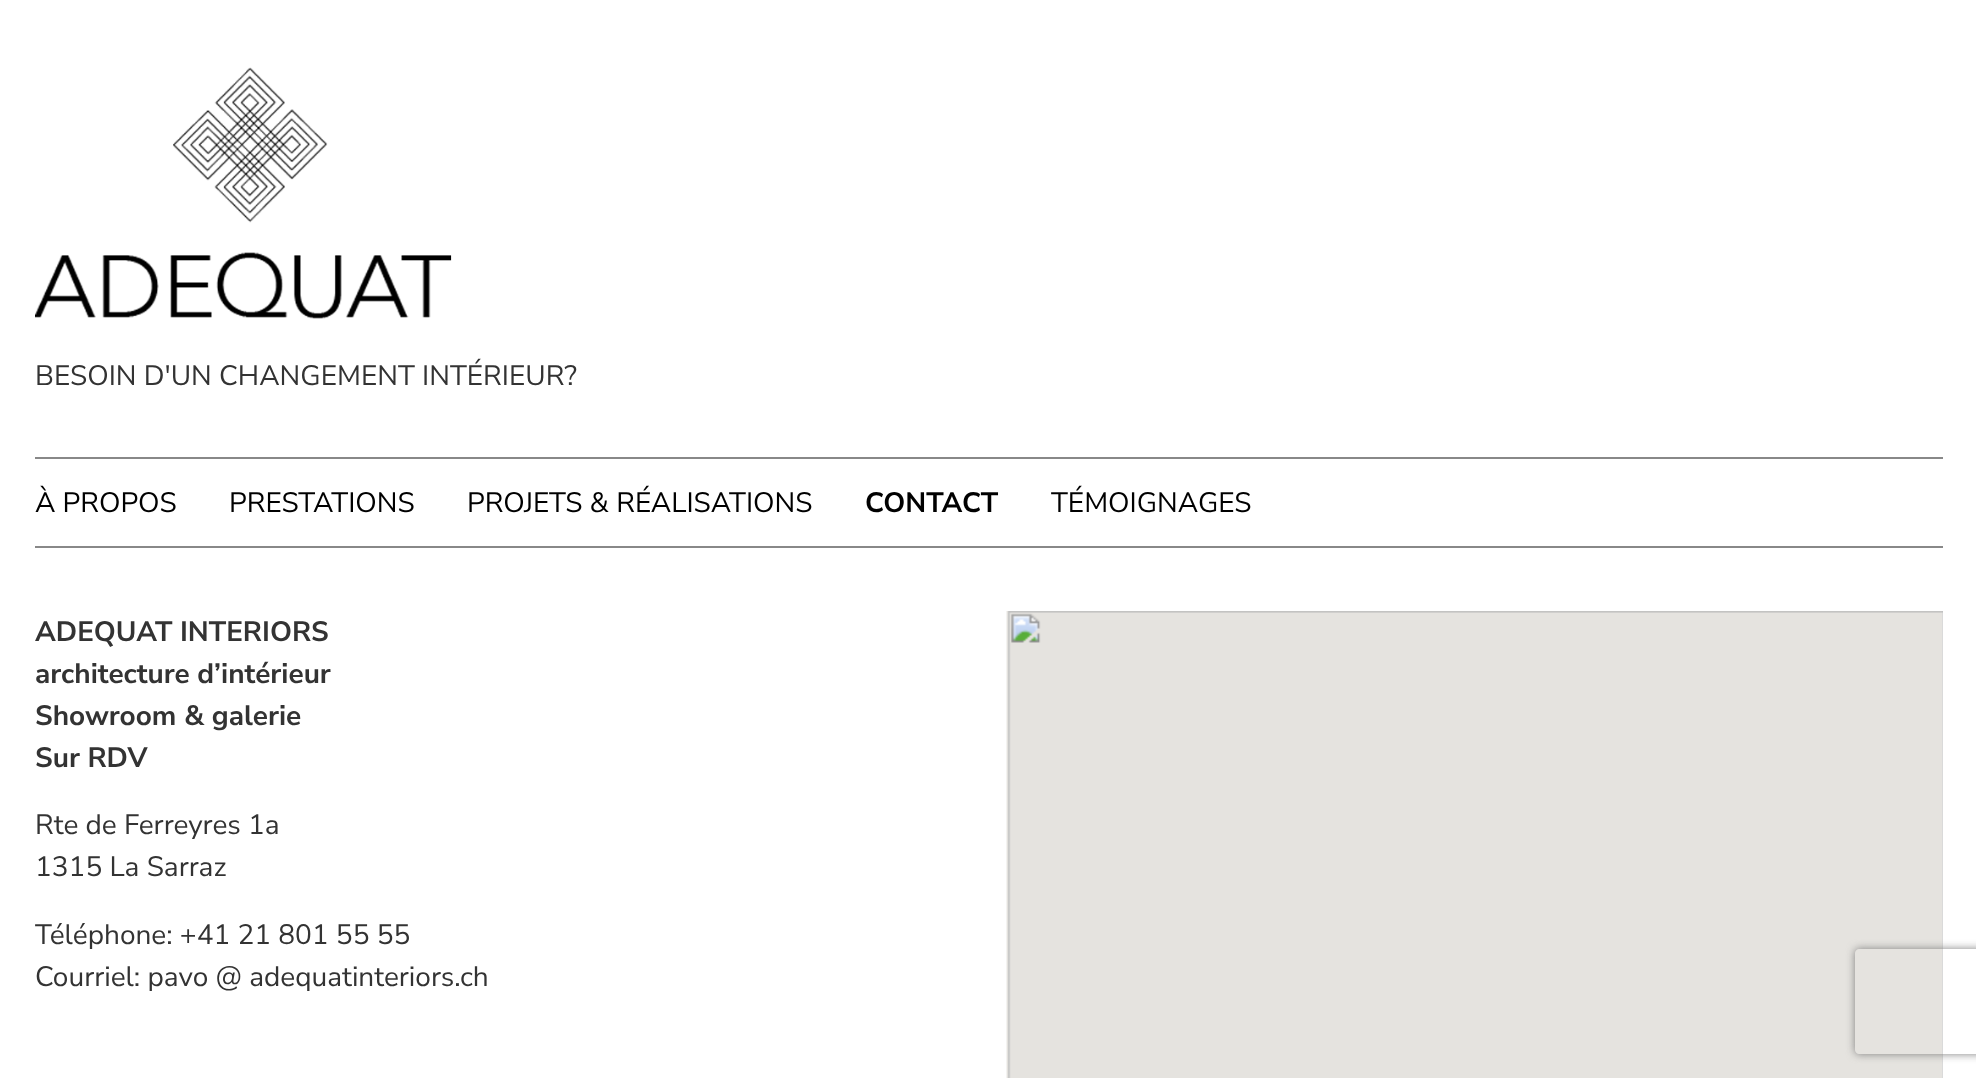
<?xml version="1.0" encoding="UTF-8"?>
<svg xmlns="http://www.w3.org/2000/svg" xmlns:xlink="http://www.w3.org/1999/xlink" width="1976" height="1078">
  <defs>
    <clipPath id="clip1"><path d="M 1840 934 h 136 v 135 h -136 z m 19 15 h 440 c 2 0 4 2 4 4 v 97 c 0 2 -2 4 -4 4 h -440 c -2 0 -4 -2 -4 -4 v -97 c 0 -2 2 -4 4 -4 z" clip-rule="evenodd" /></clipPath>
  </defs>
  <rect width="100%" height="100%" fill="#ffffff" />
  <image x="35" y="67" width="417" height="252" xlink:href="image1.png" />
  <rect x="35" y="457" width="1908" height="2" fill="#888888" />
  <rect x="35" y="546" width="1908" height="2" fill="#888888" />
  <image x="1006" y="611" width="937" height="467" xlink:href="image2.png" />
  <g clip-path="url(#clip1)">
    <rect x="1855" y="949" width="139" height="105" rx="4" fill="#808080" filter="blur(4.5px)" />
  </g>
  <text x="35" y="385" style="font-family: Nunito Sans; font-size: 28px; fill: #333333">BESOIN D'UN CHANGEMENT INTÉRIEUR?</text>
  <text x="35" y="512" style="font-family: Nunito Sans; font-size: 28px; fill: #000000">À PROPOS</text>
  <text x="229" y="512" style="font-family: Nunito Sans; font-size: 28px; fill: #000000">PRESTATIONS</text>
  <text x="467" y="512" style="font-family: Nunito Sans; font-size: 28px; fill: #000000">PROJETS &amp; RÉALISATIONS</text>
  <text x="865" y="512" style="font-family: Nunito Sans; font-size: 28px; font-weight: bold; fill: #000000">CONTACT</text>
  <text x="1051" y="512" style="font-family: Nunito Sans; font-size: 28px; fill: #000000">TÉMOIGNAGES</text>
  <text x="35" y="641" style="font-family: Nunito Sans; font-size: 28px; font-weight: bold; fill: #333333">ADEQUAT INTERIORS</text>
  <text x="35" y="683" style="font-family: Nunito Sans; font-size: 28px; font-weight: bold; fill: #333333">architecture d’intérieur</text>
  <text x="35" y="725" style="font-family: Nunito Sans; font-size: 28px; font-weight: bold; fill: #333333">Showroom &amp; galerie</text>
  <text x="35" y="767" style="font-family: Nunito Sans; font-size: 28px; font-weight: bold; fill: #333333">Sur RDV</text>
  <text x="35" y="834" style="font-family: Nunito Sans; font-size: 28px; fill: #333333">Rte de Ferreyres 1a</text>
  <text x="35" y="876" style="font-family: Nunito Sans; font-size: 28px; fill: #333333">1315 La Sarraz</text>
  <text x="35" y="944" style="font-family: Nunito Sans; font-size: 28px; fill: #333333">Téléphone: +41 21 801 55 55</text>
  <text x="35" y="986" style="font-family: Nunito Sans; font-size: 28px; fill: #333333">Courriel: pavo @ adequatinteriors.ch</text>
</svg>
